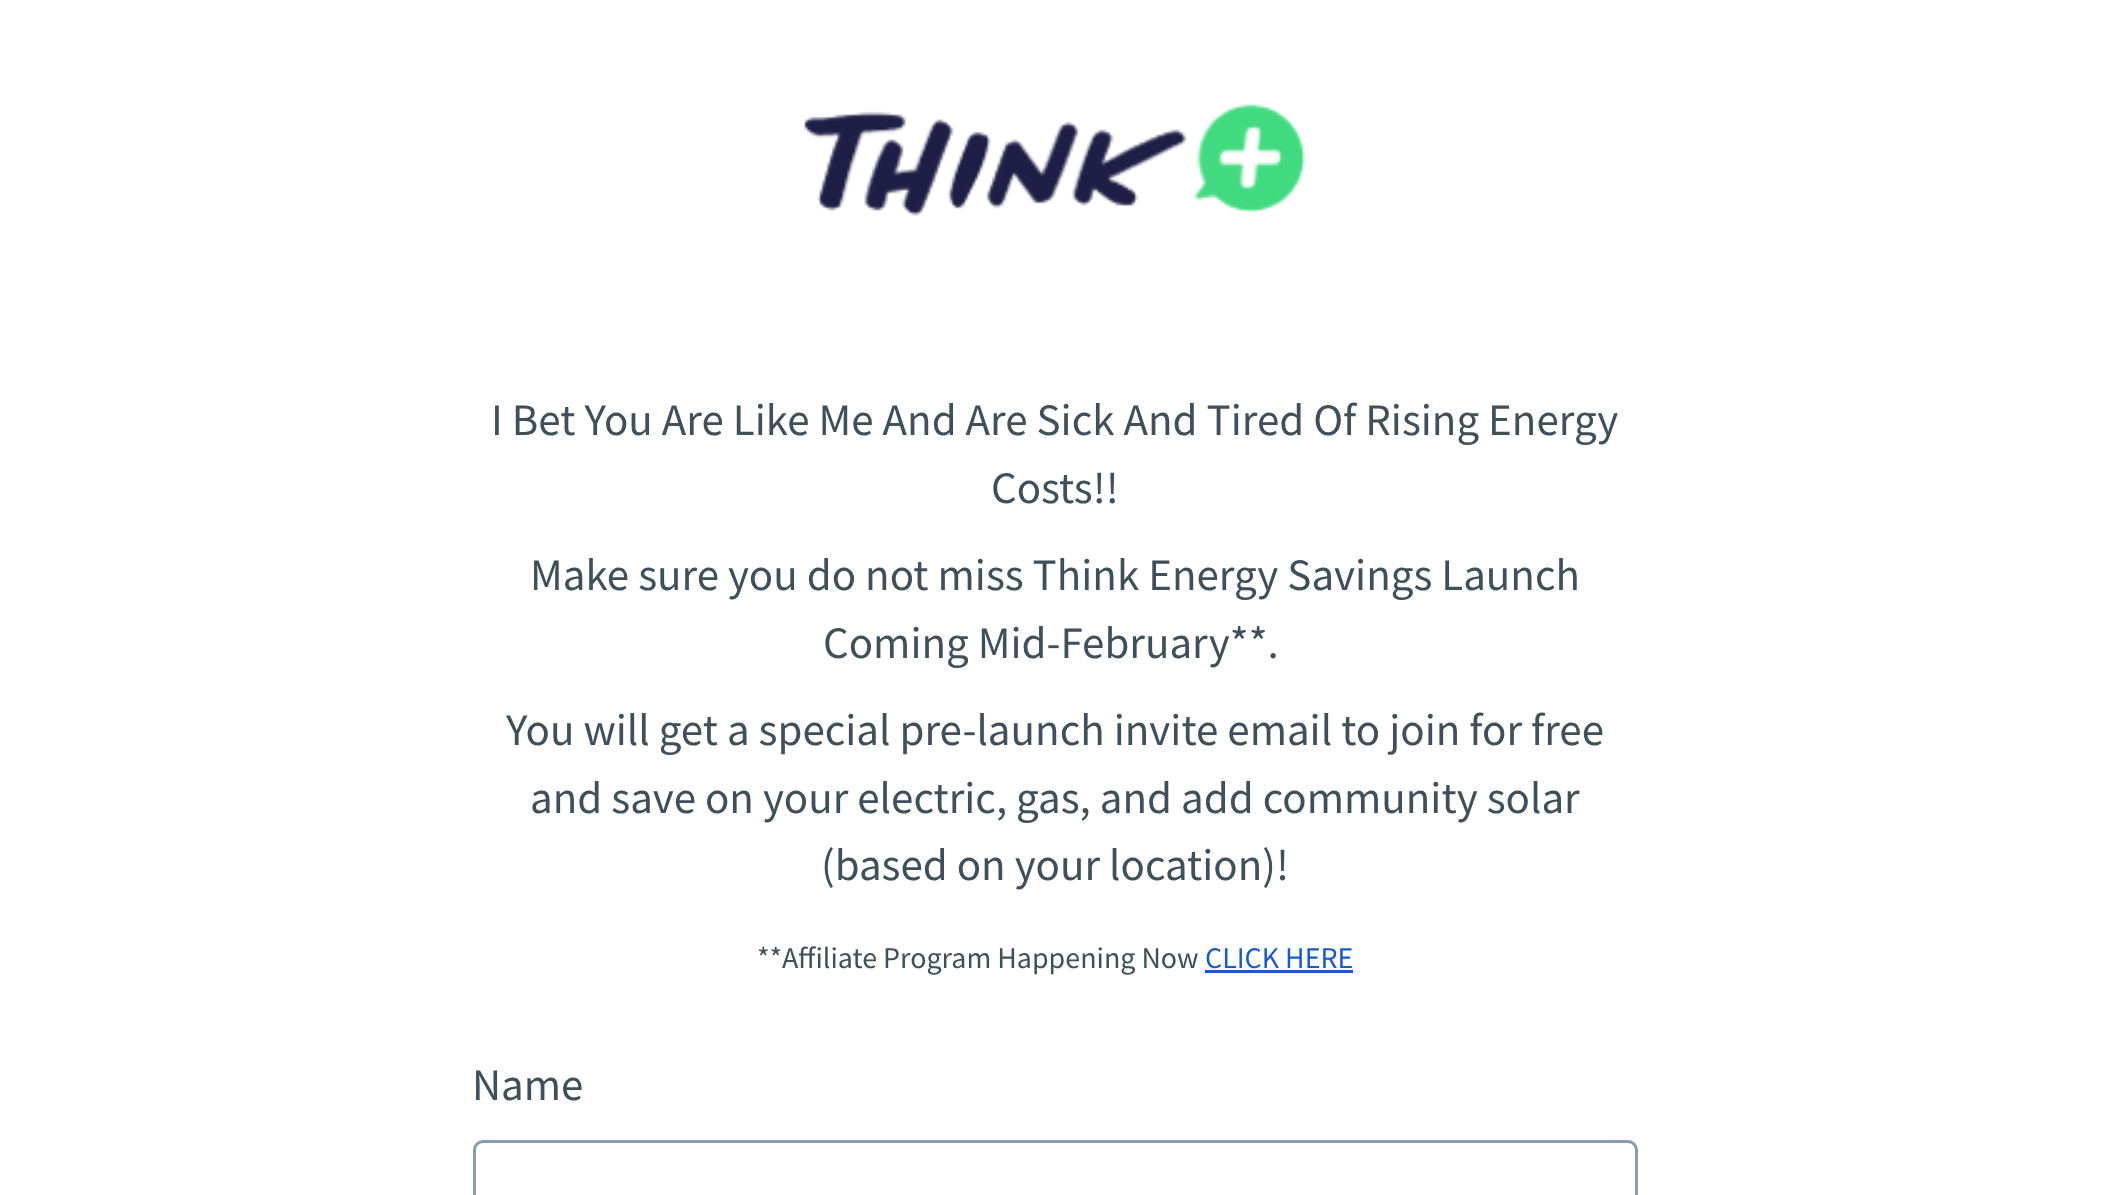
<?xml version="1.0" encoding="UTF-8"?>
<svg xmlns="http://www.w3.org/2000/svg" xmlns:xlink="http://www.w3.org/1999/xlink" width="2108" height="1195">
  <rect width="100%" height="100%" fill="#ffffff" />
  <image x="804" y="104" width="502" height="112" xlink:href="image1.png" />
  <rect x="1205" y="970" width="148" height="3" fill="#195aca" />
  <rect x="474.5" y="1141.5" width="1162" height="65" rx="8.5" fill="none" stroke="#879dab" stroke-width="3" />
  <text x="491" y="435" style="font-family: Source Sans Pro; font-size: 45px; fill: #3f505a">I Bet You Are Like Me And Are Sick And Tired Of Rising Energy</text>
  <text x="991" y="503" style="font-family: Source Sans Pro; font-size: 45px; fill: #3f505a">Costs!!</text>
  <text x="530" y="590" style="font-family: Source Sans Pro; font-size: 45px; fill: #3f505a">Make sure you do not miss Think Energy Savings Launch</text>
  <text x="823" y="658" style="font-family: Source Sans Pro; font-size: 45px; fill: #3f505a">Coming Mid-February**.</text>
  <text x="506" y="745" style="font-family: Source Sans Pro; font-size: 45px; fill: #3f505a">You will get a special pre-launch invite email to join for free</text>
  <text x="530" y="813" style="font-family: Source Sans Pro; font-size: 45px; fill: #3f505a">and save on your electric, gas, and add community solar</text>
  <text x="821" y="880" style="font-family: Source Sans Pro; font-size: 45px; fill: #3f505a">(based on your location)!</text>
  <text x="757" y="968" style="font-family: Source Sans Pro; font-size: 30px; fill: #3f505a">**Affiliate Program Happening Now</text>
  <text x="1205" y="968" style="font-family: Source Sans Pro; font-size: 30px; fill: #195aca">CLICK HERE</text>
  <text x="472" y="1100" style="font-family: Source Sans Pro; font-size: 45px; fill: #3f505a">Name</text>
</svg>
